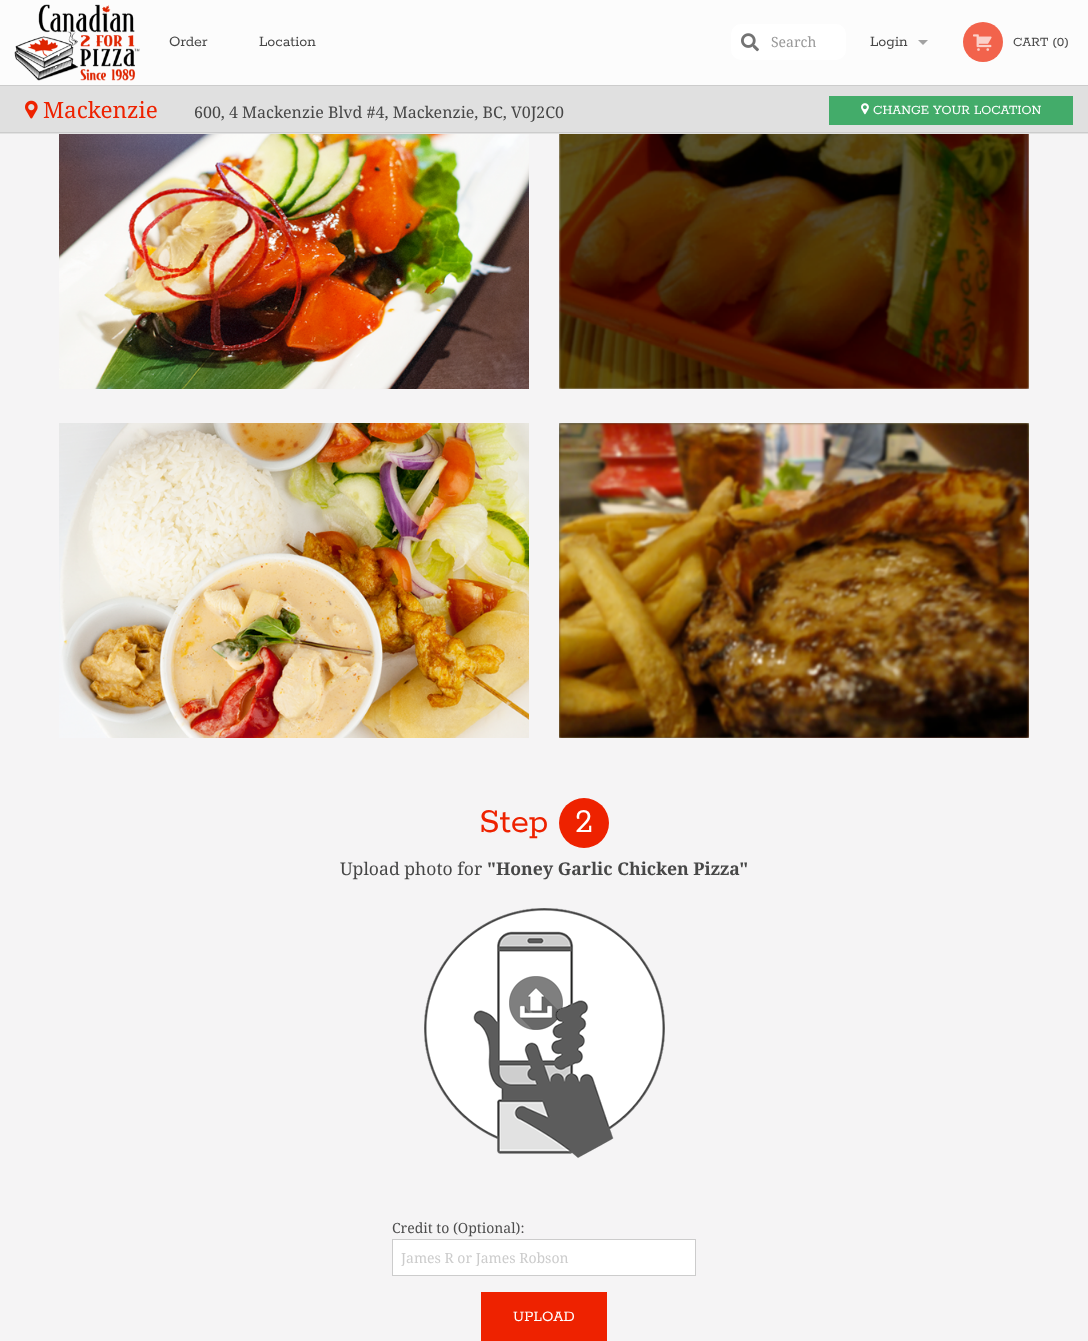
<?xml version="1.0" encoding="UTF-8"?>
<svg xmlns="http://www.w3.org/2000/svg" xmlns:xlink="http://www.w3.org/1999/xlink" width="1088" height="1341">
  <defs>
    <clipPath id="clip1"><rect x="401" y="1250" width="286" height="16" /></clipPath>
  </defs>
  <rect width="100%" height="100%" fill="#f5f4f5" />
  <rect width="1088" height="85" fill="#fcfcfc" />
  <rect y="133" width="1088" height="1" fill="#e2e2e2" />
  <image x="14" y="4" width="126" height="77" xlink:href="image1.png" />
  <rect x="731" y="24" width="115" height="36" rx="10" fill="#ffffff" />
  <image x="741" y="33" width="18" height="19" xlink:href="image2.png" />
  <path d="M 918 40 h 10 l -5 5 z" fill="#a2a2a2" />
  <circle cx="983" cy="42" r="20" fill="#f2634c" />
  <image x="973" y="34" width="19" height="17" xlink:href="image3.png" />
  <rect y="86" width="1088" height="46" fill="#e0e0e0" />
  <rect y="85" width="1088" height="1" fill="#cccccc" />
  <rect y="132" width="1088" height="1" fill="#cccccc" />
  <image x="25" y="100" width="13" height="19" xlink:href="image4.png" />
  <rect x="829" y="96" width="244" height="29" fill="#43ac6a" />
  <image x="861" y="103" width="8" height="12" xlink:href="image5.png" />
  <image x="59" y="134" width="470" height="255" xlink:href="image6.png" />
  <image x="59" y="423" width="470" height="315" xlink:href="image7.png" />
  <image x="559" y="134" width="470" height="255" xlink:href="image8.png" />
  <image x="559" y="423" width="470" height="315" xlink:href="image9.png" />
  <circle cx="584" cy="823" r="25" fill="#ee2200" />
  <image x="424" y="908" width="241" height="250" xlink:href="image10.png" />
  <rect x="392.5" y="1239.5" width="303" height="36" fill="#ffffff" stroke="#cccccc" />
  <rect x="481" y="1292" width="126" height="49" fill="#ee2200" />
  <text x="169" y="46" style="font-family: Rokkitt; font-size: 16px; font-weight: 600; fill: #474747">Order</text>
  <text x="259" y="46" style="font-family: Rokkitt; font-size: 16px; font-weight: 600; fill: #474747">Location</text>
  <text x="771" y="47" style="font-family: Droid Serif; font-size: 14px; fill: #999999">Search</text>
  <text x="870" y="46" style="font-family: Rokkitt; font-size: 16px; font-weight: 600; fill: #474747">Login</text>
  <text x="1013" y="46" style="font-family: Rokkitt; font-size: 14px; font-weight: 600; fill: #474747">CART (0)</text>
  <text x="43" y="118" style="font-family: Droid Serif; font-size: 22.5px; fill: #ee2200">Mackenzie</text>
  <text x="194" y="118" style="font-family: Droid Serif; font-size: 16px; fill: #474747">600, 4 Mackenzie Blvd #4, Mackenzie, BC, V0J2C0</text>
  <text x="873" y="114" style="font-family: Rokkitt; font-size: 14px; font-weight: 600; fill: #ffffff">CHANGE YOUR LOCATION</text>
  <text x="479" y="832" style="font-family: Rokkitt; font-size: 37px; font-weight: 600; fill: #ee2200">Step</text>
  <text x="575" y="832" style="font-family: Rokkitt; font-size: 37px; font-weight: 600; fill: #ffffff">2</text>
  <text x="340" y="875" style="font-family: Droid Serif; font-size: 17.6px; fill: #474747">Upload photo for</text>
  <text x="487" y="875" style="font-family: Droid Serif; font-size: 17.6px; font-weight: bold; fill: #474747">"Honey Garlic Chicken Pizza"</text>
  <text x="392" y="1233" style="font-family: Droid Serif; font-size: 14px; fill: #4d4d4d">Credit to (Optional):</text>
  <g clip-path="url(#clip1)">
    <text x="401" y="1263" style="font-family: Droid Serif; font-size: 14px; fill: #cccccc">James R or James Robson</text>
  </g>
  <text x="513" y="1321" style="font-family: Rokkitt; font-size: 16px; font-weight: 600; fill: #ffffff">UPLOAD</text>
</svg>
